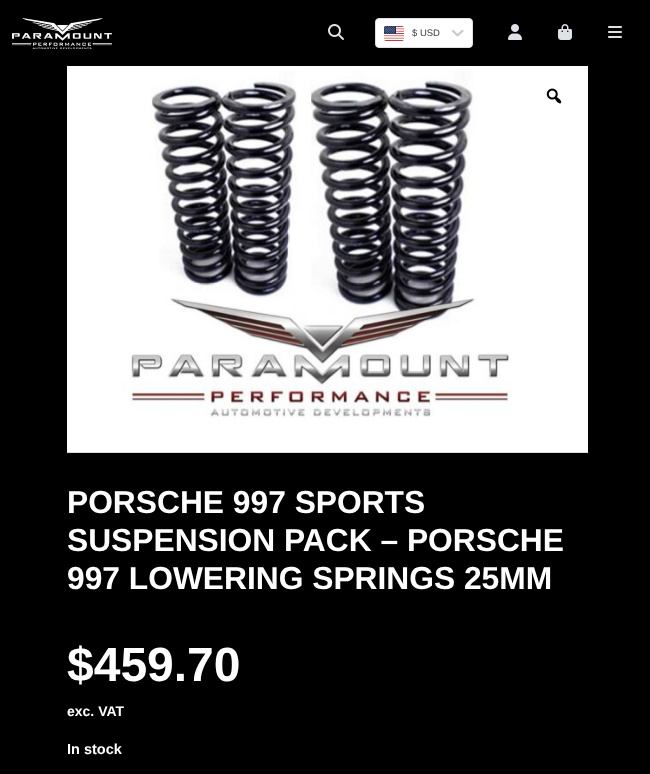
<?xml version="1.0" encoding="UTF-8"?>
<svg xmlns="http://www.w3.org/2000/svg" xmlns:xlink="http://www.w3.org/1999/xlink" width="650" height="774">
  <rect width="100%" height="100%" fill="#000000" />
  <image x="12" y="18" width="100" height="31" xlink:href="image1.png" />
  <image x="328" y="24" width="16" height="16" xlink:href="image2.png" />
  <rect x="375.5" y="18.5" width="97" height="29" rx="3.5" fill="#ffffff" stroke="#dcdfe6" />
  <image x="384" y="26" width="20" height="15" xlink:href="image3.png" />
  <path d="M 451.5 31 l 1.5 -1.5 l 6 5.5 l -2 1.5 z" fill="#cccccc" />
  <path d="M 462 29.5 l 2 1.5 l -6 5.5 l -1.5 -1.5 z" fill="#cccccc" />
  <image x="508" y="24" width="14" height="16" xlink:href="image4.png" />
  <image x="558" y="24" width="14" height="16" xlink:href="image5.png" />
  <image x="608" y="26" width="14" height="12" xlink:href="image6.png" />
  <image x="67" y="66" width="521" height="387" xlink:href="image7.png" />
  <image x="546" y="88" width="16" height="16" xlink:href="image8.png" />
  <text x="412" y="36" style="font-family: Liberation Sans; font-size: 9.5px; fill: #3b3b3b">$ USD</text>
  <text x="67" y="513" style="font-family: Liberation Sans; font-size: 31.75px; font-weight: bold; fill: #ffffff">PORSCHE 997 SPORTS</text>
  <text x="67" y="551" style="font-family: Liberation Sans; font-size: 31.75px; font-weight: bold; fill: #ffffff">SUSPENSION PACK – PORSCHE</text>
  <text x="67" y="589" style="font-family: Liberation Sans; font-size: 31.75px; font-weight: bold; fill: #ffffff">997 LOWERING SPRINGS 25MM</text>
  <text x="67" y="681" style="font-family: Liberation Sans; font-size: 48px; font-weight: bold; fill: #ffffff">$459.70</text>
  <text x="67" y="716" style="font-family: Liberation Sans; font-size: 14px; font-weight: bold; fill: #ffffff">exc. VAT</text>
  <text x="67" y="754" style="font-family: Liberation Sans; font-size: 14.5px; font-weight: bold; fill: #ffffff">In stock</text>
</svg>
